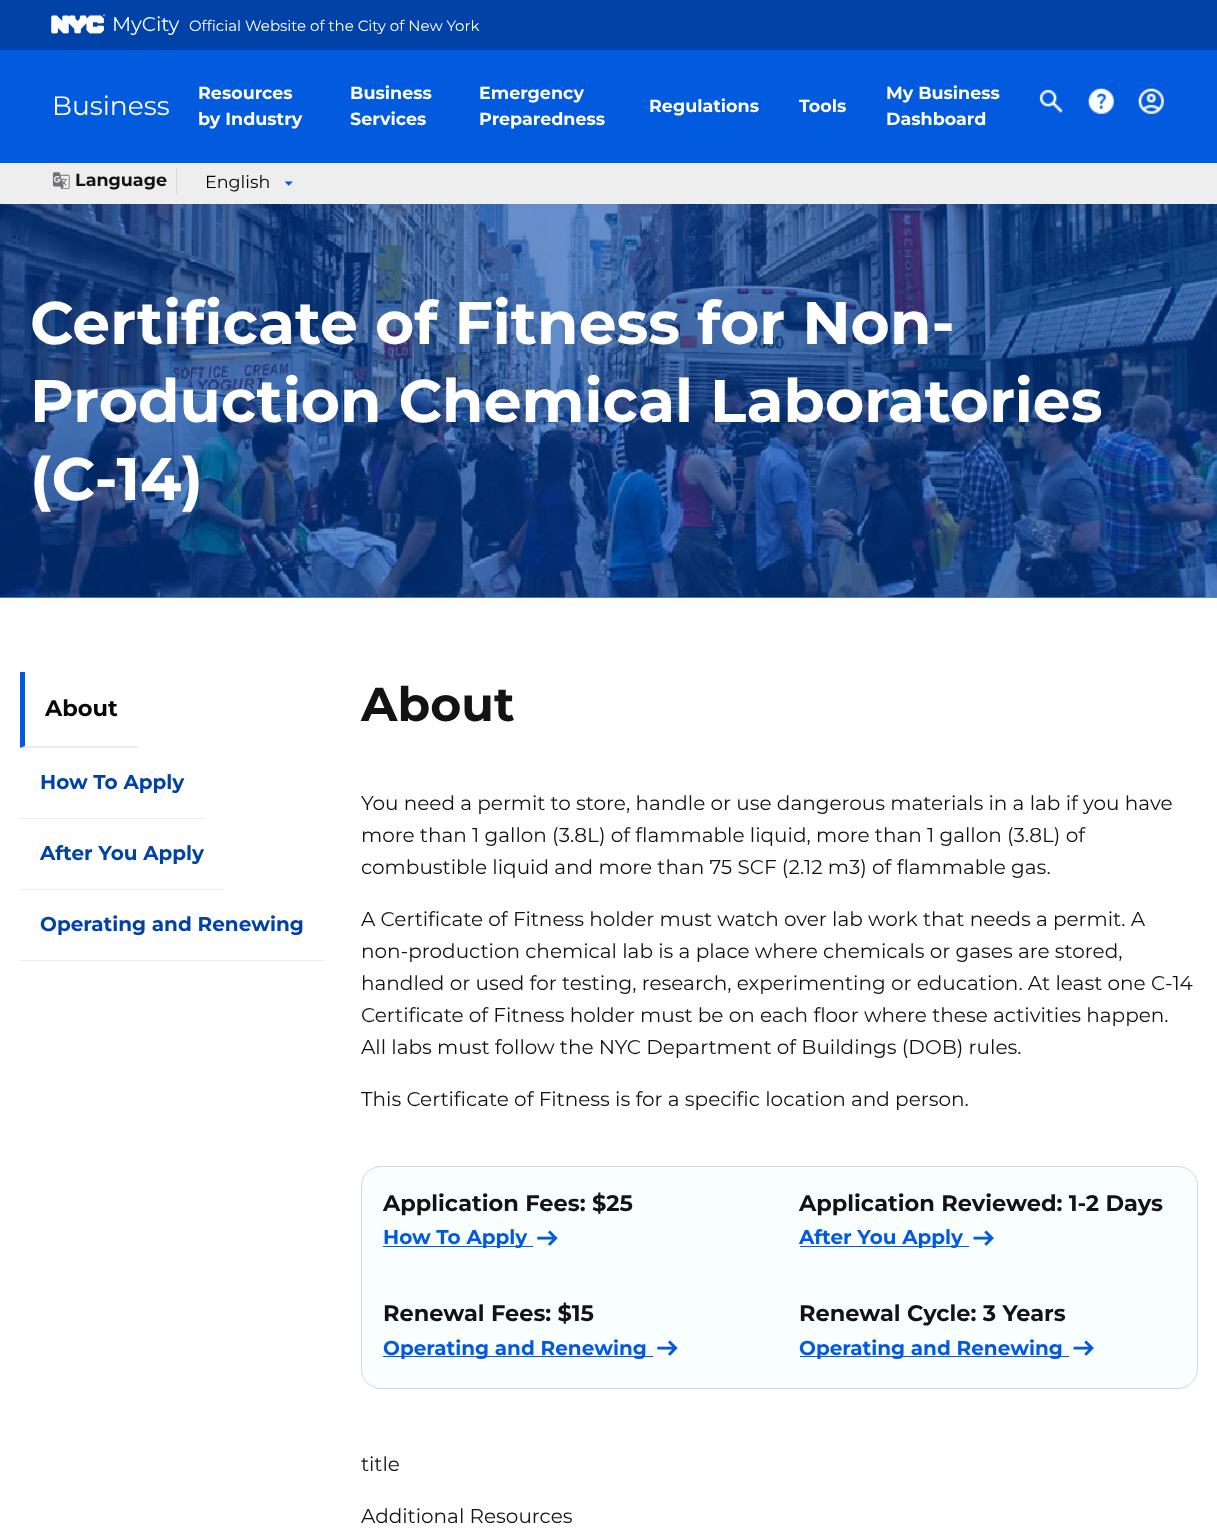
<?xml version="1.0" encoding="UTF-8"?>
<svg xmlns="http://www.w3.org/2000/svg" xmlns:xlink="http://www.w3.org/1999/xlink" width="1217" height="1539">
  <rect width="100%" height="100%" fill="#ffffff" />
  <rect y="597" width="1217" height="1" fill="#668eca" />
  <rect y="50" width="1217" height="113" fill="#025adf" />
  <rect width="1217" height="50" fill="#0042a7" />
  <image x="51" y="14" width="55" height="20" xlink:href="image1.png" />
  <image x="1039" y="89" width="24" height="24" xlink:href="image2.png" />
  <image x="1088" y="88" width="26" height="26" xlink:href="image3.png" />
  <image x="1138" y="88" width="26" height="26" xlink:href="image4.png" />
  <rect y="163" width="1217" height="41" fill="#eeeeee" />
  <rect x="176" y="168" width="1" height="26" fill="#d6d6d6" />
  <image x="52" y="172" width="18" height="17" xlink:href="image5.png" />
  <image x="284" y="181" width="9" height="5" xlink:href="image6.png" />
  <image x="0" y="204" width="1217" height="394" xlink:href="image7.png" />
  <path d="M 138 748 h -118 l 5 -2 h 113 z" fill="#eaeef1" />
  <path d="M 20 748 v -76 h 5 v 74 z" fill="#025adf" />
  <rect x="20" y="818" width="184" height="1" fill="#eaeef1" />
  <rect x="20" y="889" width="204" height="1" fill="#eaeef1" />
  <rect x="20" y="960" width="304" height="1" fill="#eaeef1" />
  <rect x="361.5" y="1166.5" width="836" height="222" rx="19.5" fill="#f9feff" stroke="#d4d7dc" />
  <rect x="383" y="1246" width="150" height="1" fill="#025adf" />
  <image x="537" y="1230" width="21" height="16" xlink:href="image8.png" />
  <rect x="800" y="1246" width="169" height="1" fill="#025adf" />
  <image x="973" y="1230" width="21" height="16" xlink:href="image9.png" />
  <rect x="383" y="1356" width="270" height="1" fill="#025adf" />
  <image x="657" y="1340" width="21" height="16" xlink:href="image8.png" />
  <rect x="800" y="1356" width="269" height="1" fill="#025adf" />
  <image x="1073" y="1340" width="21" height="16" xlink:href="image9.png" />
  <text x="112" y="31" style="font-family: Montserrat; font-size: 20px; fill: #ffffff">MyCity</text>
  <text x="189" y="31" style="font-family: Montserrat; font-size: 15px; fill: #ffffff">Official Website of the City of New York</text>
  <text x="52" y="115" style="font-family: Montserrat; font-size: 26.5px; fill: #ffffff">Business</text>
  <text x="198" y="99" style="font-family: Montserrat; font-size: 17.5px; font-weight: bold; fill: #ffffff">Resources</text>
  <text x="198" y="125" style="font-family: Montserrat; font-size: 17.5px; font-weight: bold; fill: #ffffff">by Industry</text>
  <text x="350" y="99" style="font-family: Montserrat; font-size: 17.5px; font-weight: bold; fill: #ffffff">Business</text>
  <text x="350" y="125" style="font-family: Montserrat; font-size: 17.5px; font-weight: bold; fill: #ffffff">Services</text>
  <text x="479" y="99" style="font-family: Montserrat; font-size: 17.5px; font-weight: bold; fill: #ffffff">Emergency</text>
  <text x="479" y="125" style="font-family: Montserrat; font-size: 17.5px; font-weight: bold; fill: #ffffff">Preparedness</text>
  <text x="649" y="112" style="font-family: Montserrat; font-size: 17.5px; font-weight: bold; fill: #ffffff">Regulations</text>
  <text x="799" y="112" style="font-family: Montserrat; font-size: 17.5px; font-weight: bold; fill: #ffffff">Tools</text>
  <text x="886" y="99" style="font-family: Montserrat; font-size: 17.5px; font-weight: bold; fill: #ffffff">My Business</text>
  <text x="886" y="125" style="font-family: Montserrat; font-size: 17.5px; font-weight: bold; fill: #ffffff">Dashboard</text>
  <text x="75" y="186" style="font-family: Montserrat; font-size: 17.5px; font-weight: bold; fill: #131313">Language</text>
  <text x="205" y="188" style="font-family: Montserrat; font-size: 17.5px; fill: #000000">English</text>
  <text x="30" y="344" style="font-family: Montserrat; font-size: 60px; font-weight: bold; fill: #ffffff">Certificate of Fitness for Non-</text>
  <text x="30" y="422" style="font-family: Montserrat; font-size: 60px; font-weight: bold; fill: #ffffff">Production Chemical Laboratories</text>
  <text x="30" y="500" style="font-family: Montserrat; font-size: 60px; font-weight: bold; fill: #ffffff">(C-14)</text>
  <text x="45" y="716" style="font-family: Montserrat; font-size: 22.5px; font-weight: bold; fill: #080707">About</text>
  <text x="40" y="789" style="font-family: Montserrat; font-size: 20px; font-weight: bold; fill: #0042a7">How To Apply</text>
  <text x="40" y="860" style="font-family: Montserrat; font-size: 20px; font-weight: bold; fill: #0042a7">After You Apply</text>
  <text x="40" y="931" style="font-family: Montserrat; font-size: 20px; font-weight: bold; fill: #0042a7">Operating and Renewing</text>
  <text x="361" y="721" style="font-family: Montserrat; font-size: 47.5px; font-weight: bold; fill: #131313">About</text>
  <text x="361" y="810" style="font-family: Montserrat; font-size: 20px; fill: #131313">You need a permit to store, handle or use dangerous materials in a lab if you have</text>
  <text x="361" y="842" style="font-family: Montserrat; font-size: 20px; fill: #131313">more than 1 gallon (3.8L) of flammable liquid, more than 1 gallon (3.8L) of</text>
  <text x="361" y="874" style="font-family: Montserrat; font-size: 20px; fill: #131313">combustible liquid and more than 75 SCF (2.12 m3) of flammable gas.</text>
  <text x="361" y="926" style="font-family: Montserrat; font-size: 20px; fill: #131313">A Certificate of Fitness holder must watch over lab work that needs a permit. A</text>
  <text x="361" y="958" style="font-family: Montserrat; font-size: 20px; fill: #131313">non-production chemical lab is a place where chemicals or gases are stored,</text>
  <text x="361" y="990" style="font-family: Montserrat; font-size: 20px; fill: #131313">handled or used for testing, research, experimenting or education. At least one C-14</text>
  <text x="361" y="1022" style="font-family: Montserrat; font-size: 20px; fill: #131313">Certificate of Fitness holder must be on each floor where these activities happen.</text>
  <text x="361" y="1054" style="font-family: Montserrat; font-size: 20px; fill: #131313">All labs must follow the NYC Department of Buildings (DOB) rules.</text>
  <text x="361" y="1106" style="font-family: Montserrat; font-size: 20px; fill: #131313">This Certificate of Fitness is for a specific location and person.</text>
  <text x="383" y="1211" style="font-family: Montserrat; font-size: 22.5px; font-weight: bold; fill: #131313">Application Fees: $25</text>
  <text x="383" y="1244" style="font-family: Montserrat; font-size: 20px; font-weight: bold; fill: #025adf">How To Apply</text>
  <text x="799" y="1211" style="font-family: Montserrat; font-size: 22.5px; font-weight: bold; fill: #131313">Application Reviewed: 1-2 Days</text>
  <text x="799" y="1244" style="font-family: Montserrat; font-size: 20px; font-weight: bold; fill: #025adf">After You Apply</text>
  <text x="383" y="1321" style="font-family: Montserrat; font-size: 22.5px; font-weight: bold; fill: #131313">Renewal Fees: $15</text>
  <text x="383" y="1355" style="font-family: Montserrat; font-size: 20px; font-weight: bold; fill: #025adf">Operating and Renewing</text>
  <text x="799" y="1321" style="font-family: Montserrat; font-size: 22.5px; font-weight: bold; fill: #131313">Renewal Cycle: 3 Years</text>
  <text x="799" y="1355" style="font-family: Montserrat; font-size: 20px; font-weight: bold; fill: #025adf">Operating and Renewing</text>
  <text x="361" y="1471" style="font-family: Montserrat; font-size: 20px; fill: #131313">title</text>
  <text x="361" y="1523" style="font-family: Montserrat; font-size: 20px; fill: #131313">Additional Resources</text>
</svg>
